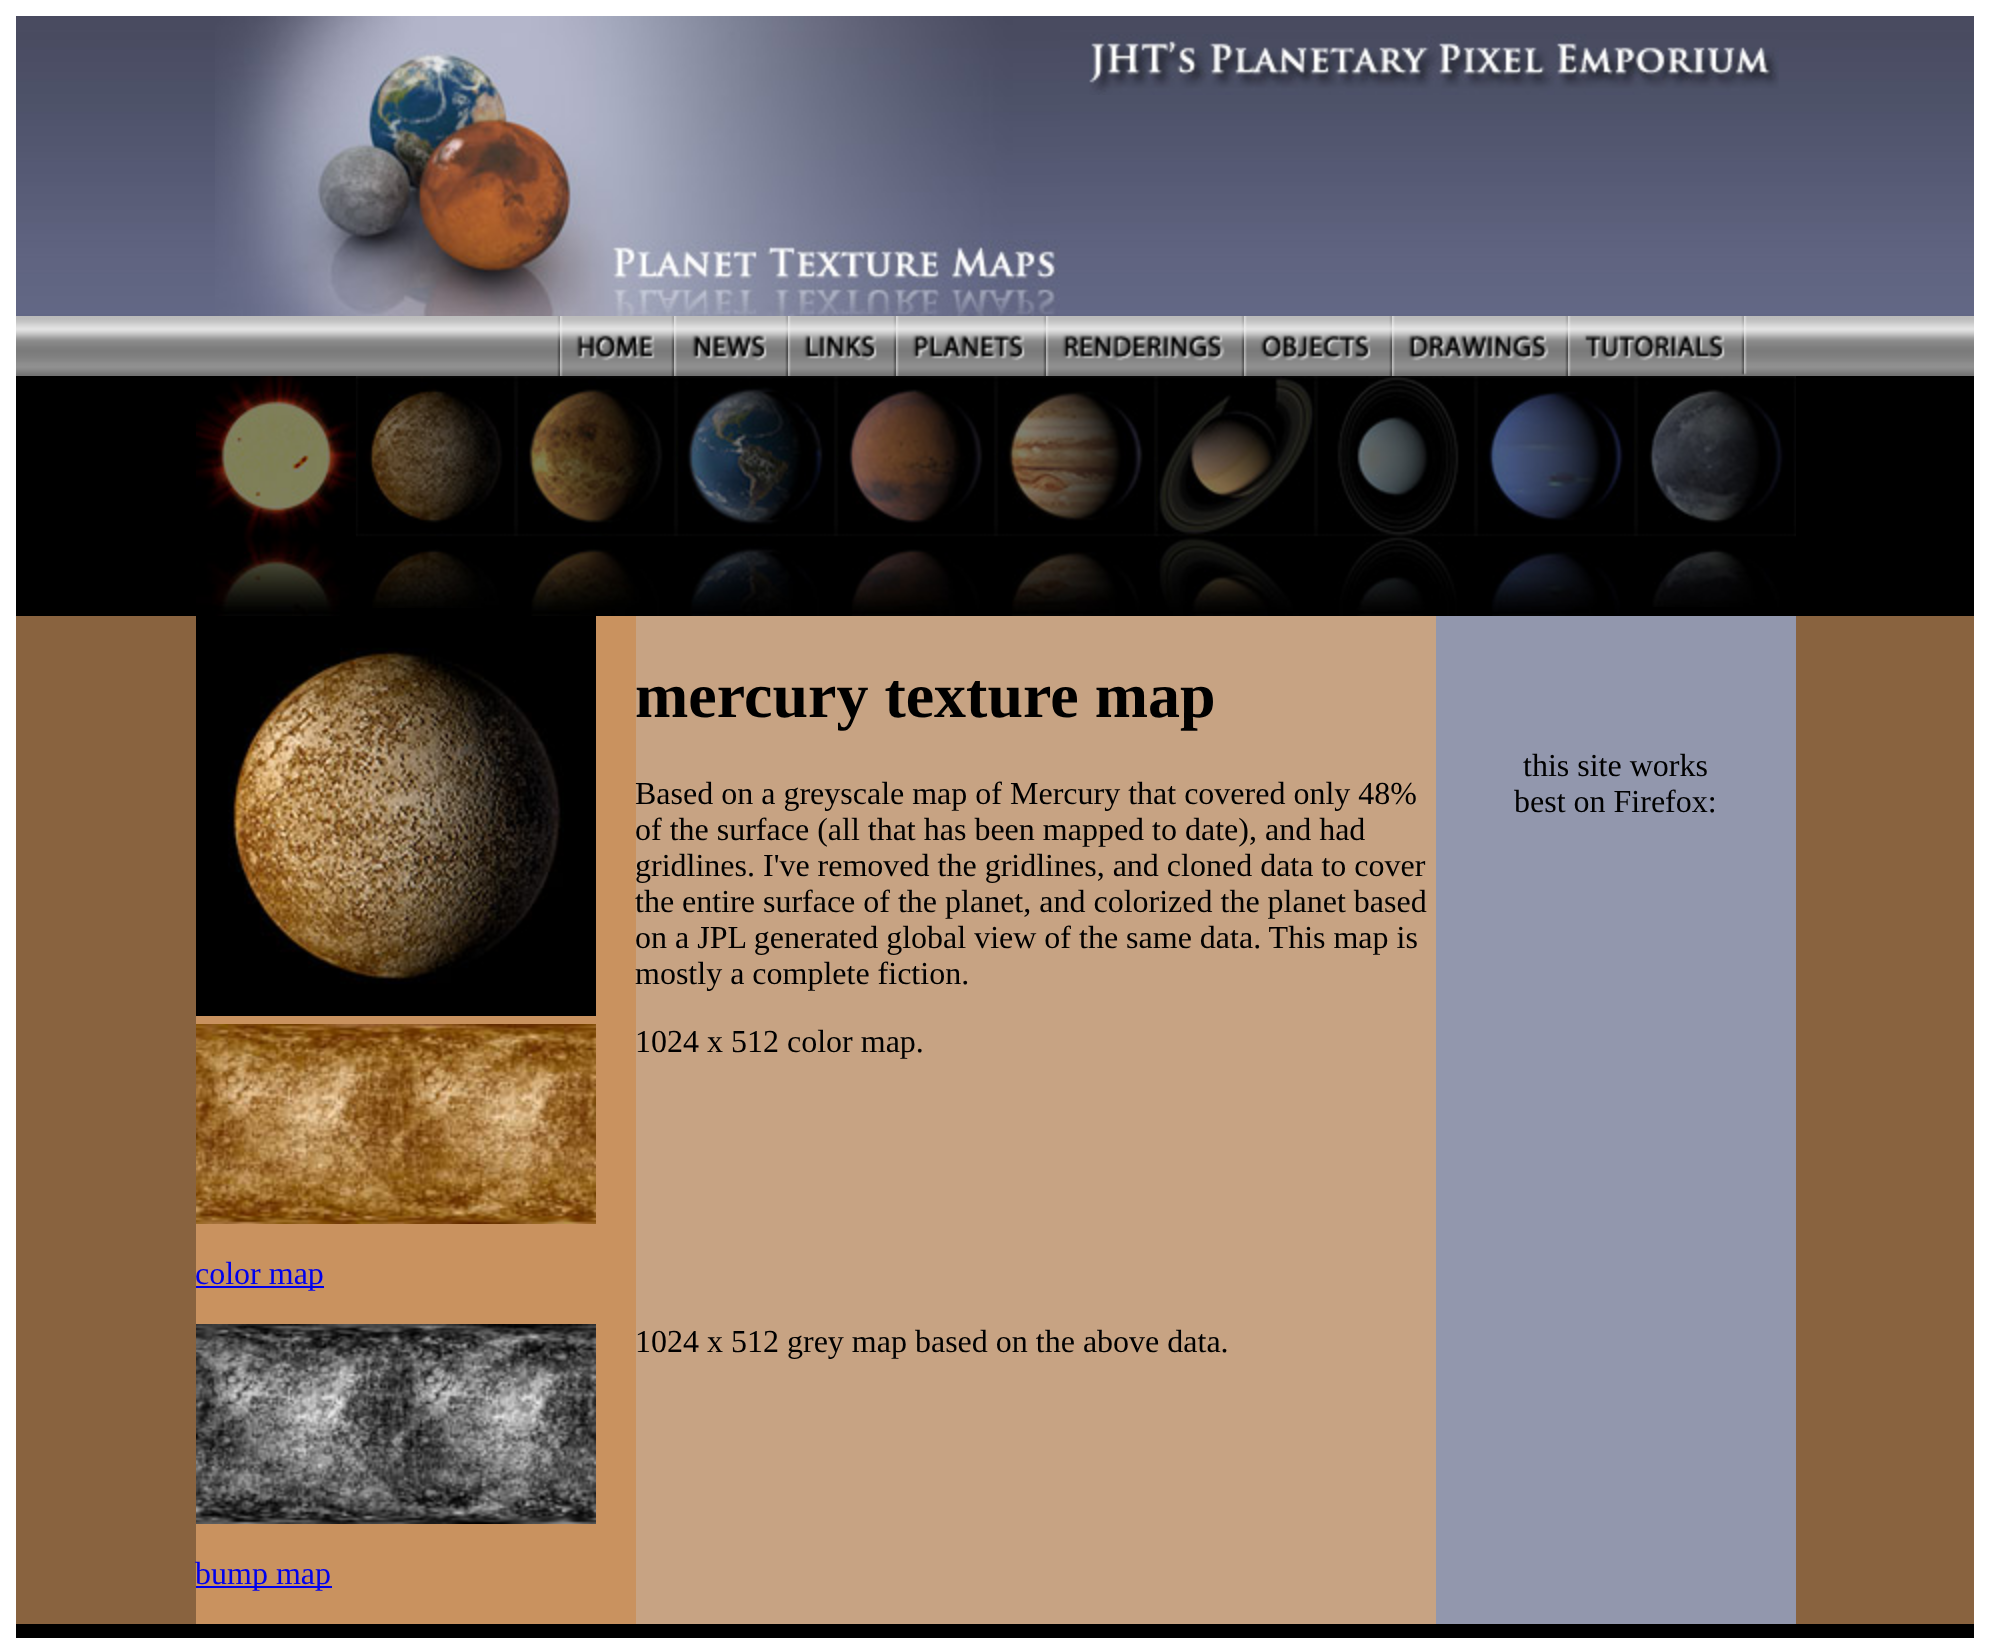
<?xml version="1.0" encoding="UTF-8"?>
<svg xmlns="http://www.w3.org/2000/svg" xmlns:xlink="http://www.w3.org/1999/xlink" width="1989" height="1638">
  <rect width="100%" height="100%" fill="#ffffff" />
  <image x="16" y="16" width="1958" height="300" xlink:href="image1.png" />
  <image x="215" y="16" width="845" height="300" xlink:href="image2.png" />
  <image x="1089" y="34" width="690" height="61" xlink:href="image3.png" />
  <rect x="16" y="376" width="1958" height="1262" fill="#000000" />
  <image x="16" y="316" width="1958" height="60" xlink:href="image4.png" />
  <image x="557" y="316" width="3" height="60" xlink:href="image5.png" />
  <image x="560" y="316" width="114" height="60" xlink:href="image6.png" />
  <image x="674" y="316" width="114" height="60" xlink:href="image7.png" />
  <image x="788" y="316" width="108" height="60" xlink:href="image8.png" />
  <image x="896" y="316" width="150" height="60" xlink:href="image9.png" />
  <image x="1046" y="316" width="198" height="60" xlink:href="image10.png" />
  <image x="1244" y="316" width="148" height="60" xlink:href="image11.png" />
  <image x="1392" y="316" width="176" height="60" xlink:href="image12.png" />
  <image x="1568" y="316" width="176" height="60" xlink:href="image13.png" />
  <image x="1744" y="316" width="3" height="59" xlink:href="image14.png" />
  <image x="196" y="376" width="160" height="240" xlink:href="image15.png" />
  <image x="356" y="376" width="160" height="232" xlink:href="image16.png" />
  <image x="516" y="376" width="160" height="240" xlink:href="image17.png" />
  <image x="676" y="376" width="160" height="240" xlink:href="image18.png" />
  <image x="836" y="376" width="160" height="240" xlink:href="image19.png" />
  <image x="996" y="376" width="160" height="240" xlink:href="image20.png" />
  <image x="1156" y="376" width="160" height="240" xlink:href="image21.png" />
  <image x="1316" y="376" width="160" height="240" xlink:href="image22.png" />
  <image x="1476" y="376" width="160" height="240" xlink:href="image23.png" />
  <image x="1636" y="376" width="160" height="231" xlink:href="image24.png" />
  <rect x="16" y="616" width="1958" height="1008" fill="#89633f" />
  <rect x="636" y="616" width="800" height="1008" fill="#c7a383" />
  <rect x="196" y="616" width="440" height="1008" fill="#c9925f" />
  <image x="196" y="616" width="400" height="400" xlink:href="image25.png" />
  <image x="196" y="1024" width="400" height="200" xlink:href="image26.png" />
  <rect x="196" y="1286" width="128" height="2" fill="#0000ee" />
  <image x="196" y="1324" width="400" height="200" xlink:href="image27.png" />
  <rect x="196" y="1586" width="136" height="2" fill="#0000ee" />
  <rect x="1436" y="616" width="360" height="1008" fill="#9297ad" />
  <text x="635" y="717" style="font-family: Liberation Serif; font-size: 64px; font-weight: bold; fill: #000000">mercury texture map</text>
  <text x="635" y="804" style="font-family: Liberation Serif; font-size: 32px; fill: #000000">Based on a greyscale map of Mercury that covered only 48%</text>
  <text x="635" y="840" style="font-family: Liberation Serif; font-size: 32px; fill: #000000">of the surface (all that has been mapped to date), and had</text>
  <text x="635" y="876" style="font-family: Liberation Serif; font-size: 32px; fill: #000000">gridlines. I've removed the gridlines, and cloned data to cover</text>
  <text x="635" y="912" style="font-family: Liberation Serif; font-size: 32px; fill: #000000">the entire surface of the planet, and colorized the planet based</text>
  <text x="635" y="948" style="font-family: Liberation Serif; font-size: 32px; fill: #000000">on a JPL generated global view of the same data. This map is</text>
  <text x="635" y="984" style="font-family: Liberation Serif; font-size: 32px; fill: #000000">mostly a complete fiction.</text>
  <text x="635" y="1052" style="font-family: Liberation Serif; font-size: 32px; fill: #000000">1024 x 512 color map.</text>
  <text x="195" y="1284" style="font-family: Liberation Serif; font-size: 32px; fill: #0000ee">color map</text>
  <text x="635" y="1352" style="font-family: Liberation Serif; font-size: 32px; fill: #000000">1024 x 512 grey map based on the above data.</text>
  <text x="195" y="1584" style="font-family: Liberation Serif; font-size: 32px; fill: #0000ee">bump map</text>
  <text x="1523" y="776" style="font-family: Liberation Serif; font-size: 32px; fill: #000000">this site works</text>
  <text x="1514" y="812" style="font-family: Liberation Serif; font-size: 32px; fill: #000000">best on Firefox:</text>
</svg>
